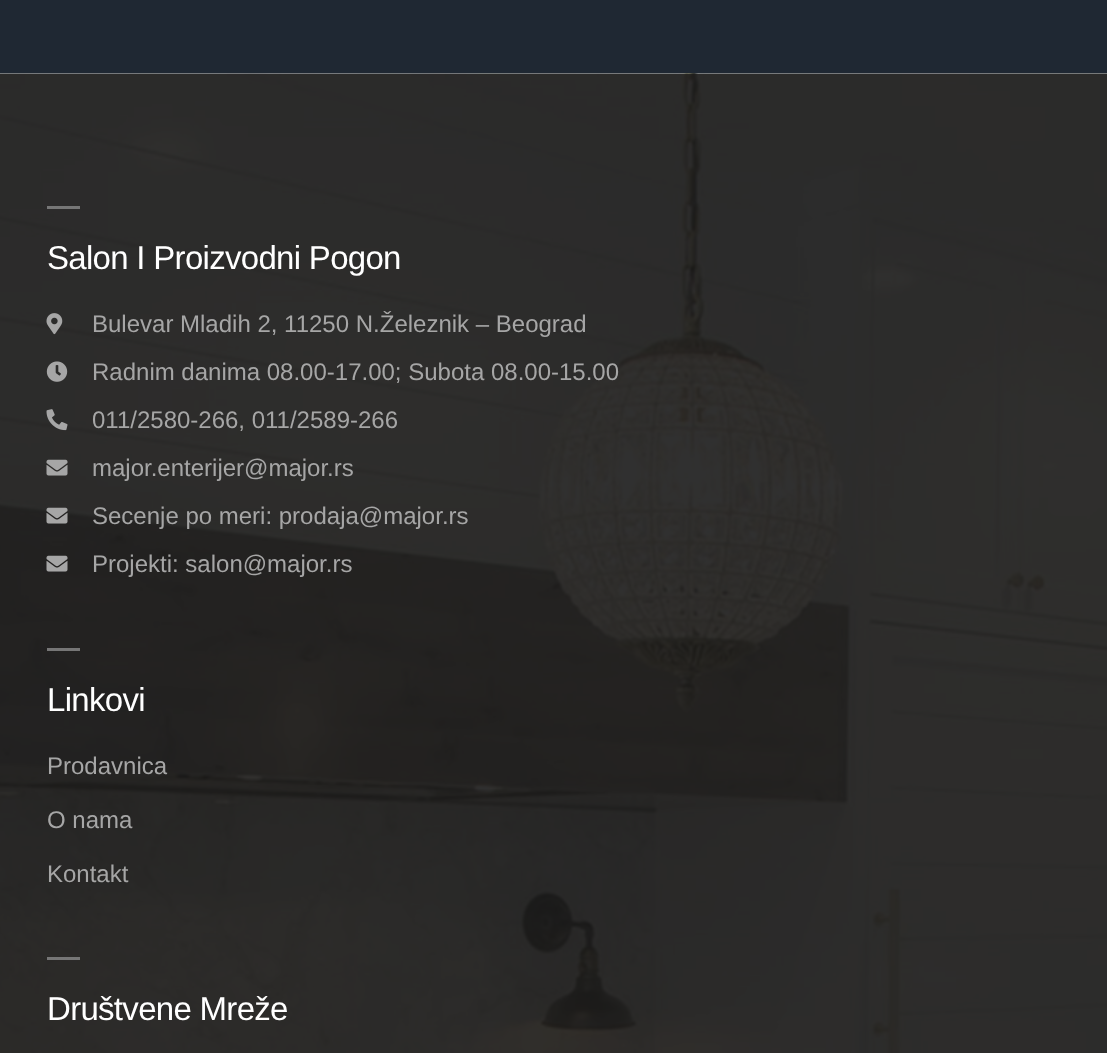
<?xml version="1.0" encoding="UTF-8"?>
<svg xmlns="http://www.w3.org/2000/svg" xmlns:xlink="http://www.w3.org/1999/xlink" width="1107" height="1053">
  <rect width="100%" height="100%" fill="#1f2833" />
  <image x="0" y="73" width="1107" height="980" xlink:href="image1.png" />
  <rect x="47" y="206" width="33" height="3" fill="#767676" />
  <image x="46" y="313" width="17" height="22" xlink:href="image2.png" />
  <image x="46" y="361" width="22" height="21" xlink:href="image3.png" />
  <image x="46" y="409" width="22" height="22" xlink:href="image4.png" />
  <image x="46" y="459" width="22" height="17" xlink:href="image5.png" />
  <image x="46" y="507" width="22" height="17" xlink:href="image6.png" />
  <image x="46" y="555" width="22" height="17" xlink:href="image7.png" />
  <rect x="47" y="648" width="33" height="3" fill="#767676" />
  <rect x="47" y="957" width="33" height="3" fill="#767676" />
  <text x="47" y="269" style="font-family: Liberation Sans; font-size: 33px; letter-spacing: -0.7px; fill: #ffffff">Salon I Proizvodni Pogon</text>
  <text x="92" y="332" style="font-family: Liberation Sans; font-size: 24px; fill: #a6a6a6">Bulevar Mladih 2, 11250 N.Železnik – Beograd</text>
  <text x="92" y="380" style="font-family: Liberation Sans; font-size: 24px; fill: #a6a6a6">Radnim danima 08.00-17.00; Subota 08.00-15.00</text>
  <text x="92" y="428" style="font-family: Liberation Sans; font-size: 24px; fill: #a6a6a6">011/2580-266, 011/2589-266</text>
  <text x="92" y="476" style="font-family: Liberation Sans; font-size: 24px; fill: #a6a6a6">major.enterijer@major.rs</text>
  <text x="92" y="524" style="font-family: Liberation Sans; font-size: 24px; fill: #a6a6a6">Secenje po meri: prodaja@major.rs</text>
  <text x="92" y="572" style="font-family: Liberation Sans; font-size: 24px; fill: #a6a6a6">Projekti: salon@major.rs</text>
  <text x="47" y="711" style="font-family: Liberation Sans; font-size: 33px; letter-spacing: -0.7px; fill: #ffffff">Linkovi</text>
  <text x="47" y="774" style="font-family: Liberation Sans; font-size: 24px; fill: #a6a6a6">Prodavnica</text>
  <text x="47" y="828" style="font-family: Liberation Sans; font-size: 24px; fill: #a6a6a6">O nama</text>
  <text x="47" y="882" style="font-family: Liberation Sans; font-size: 24px; fill: #a6a6a6">Kontakt</text>
  <text x="47" y="1020" style="font-family: Liberation Sans; font-size: 33px; letter-spacing: -0.7px; fill: #ffffff">Društvene Mreže</text>
</svg>
